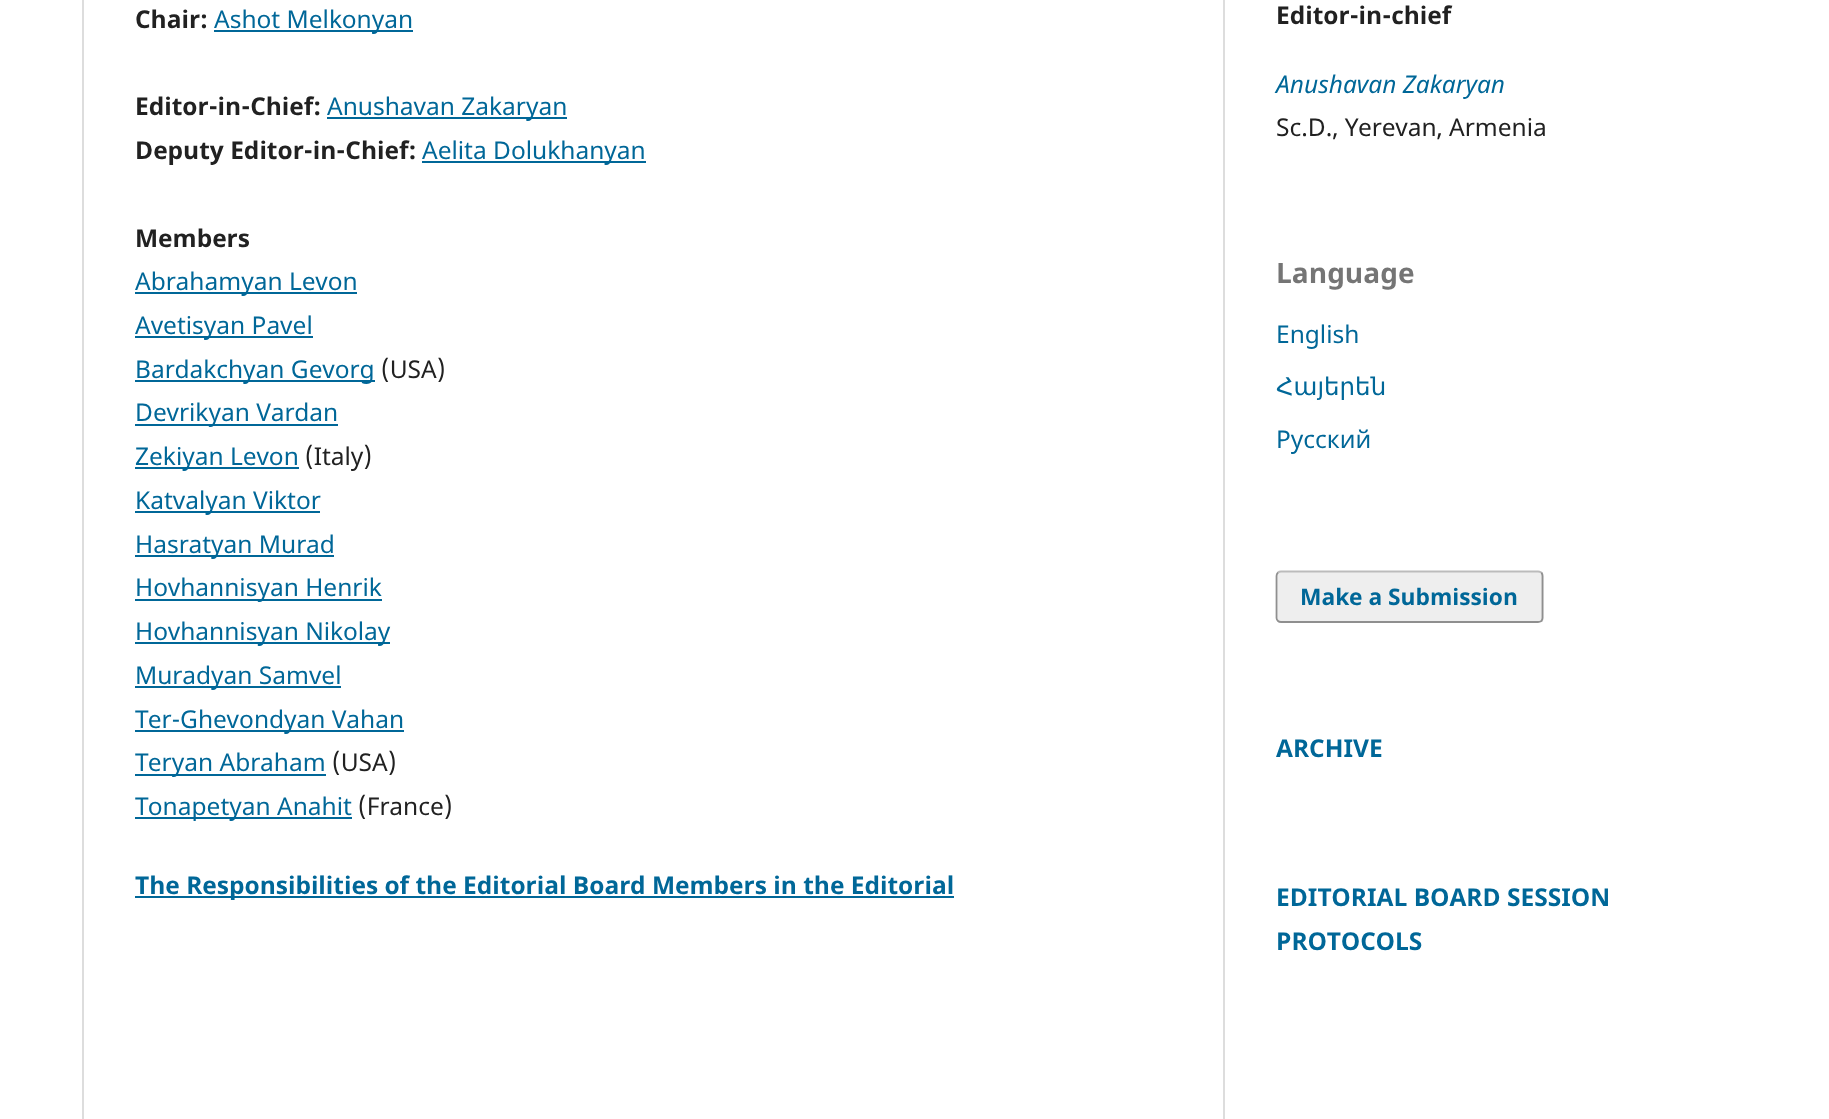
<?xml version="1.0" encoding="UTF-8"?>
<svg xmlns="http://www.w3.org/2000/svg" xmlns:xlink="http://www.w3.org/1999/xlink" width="1829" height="1119">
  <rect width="100%" height="100%" fill="#ffffff" />
  <rect x="82" width="2" height="1119" fill="#dddddd" />
  <rect x="214" y="30" width="199" height="2" fill="#006798" />
  <rect x="327" y="117" width="240" height="2" fill="#006798" />
  <rect x="422" y="161" width="224" height="2" fill="#006798" />
  <rect x="135" y="292" width="222" height="2" fill="#006798" />
  <rect x="135" y="336" width="178" height="2" fill="#006798" />
  <rect x="135" y="380" width="240" height="2" fill="#006798" />
  <rect x="135" y="424" width="203" height="2" fill="#006798" />
  <rect x="135" y="467" width="164" height="2" fill="#006798" />
  <rect x="135" y="511" width="185" height="2" fill="#006798" />
  <rect x="135" y="555" width="199" height="2" fill="#006798" />
  <rect x="135" y="599" width="247" height="2" fill="#006798" />
  <rect x="135" y="642" width="255" height="2" fill="#006798" />
  <rect x="135" y="686" width="206" height="2" fill="#006798" />
  <rect x="135" y="730" width="269" height="2" fill="#006798" />
  <rect x="135" y="774" width="191" height="2" fill="#006798" />
  <rect x="135" y="817" width="217" height="2" fill="#006798" />
  <rect x="135" y="896" width="819" height="2" fill="#006798" />
  <rect x="1223" width="2" height="1119" fill="#dddddd" />
  <rect x="1276" y="571" width="268" height="52" rx="5" fill="#eeeeee" />
  <path d="M 1278 572.5 c 0.5 -0.5 2 -1 3 -1 h 257 c 1.5 0 2.5 0.5 3.5 1" fill="none" stroke="#bbbbbb" stroke-width="1.8" />
  <path d="M 1541.5 572.5 c 0.5 1 1 2 1 3.5 v 42 c 0 1 -0.5 2 -1 3 c -1 0.5 -2 1 -3.5 1 h -257 c -1 0 -2.5 -0.5 -3 -1 c -1 -1 -1.5 -2 -1.5 -3 v -42 c 0 -1.5 0.5 -2.5 1.5 -3.5" fill="none" stroke="#000000" stroke-opacity="0.4" stroke-width="1.8" />
  <text x="135" y="28" style="font-family: Noto Sans; font-size: 24.5px; font-weight: bold; fill: #212121">Chair:</text>
  <text x="214" y="28" style="font-family: Noto Sans; font-size: 24.5px; fill: #006798">Ashot Melkonyan</text>
  <text x="135" y="115" style="font-family: Noto Sans; font-size: 24.5px; font-weight: bold; fill: #212121">Editor-in-Chief:</text>
  <text x="327" y="115" style="font-family: Noto Sans; font-size: 24.5px; fill: #006798">Anushavan Zakaryan</text>
  <text x="135" y="159" style="font-family: Noto Sans; font-size: 24.5px; font-weight: bold; fill: #212121">Deputy Editor-in-Chief:</text>
  <text x="422" y="159" style="font-family: Noto Sans; font-size: 24.5px; fill: #006798">Aelita Dolukhanyan</text>
  <text x="135" y="247" style="font-family: Noto Sans; font-size: 24.5px; font-weight: bold; fill: #212121">Members</text>
  <text x="135" y="290" style="font-family: Noto Sans; font-size: 24.5px; fill: #006798">Abrahamyan Levon</text>
  <text x="135" y="334" style="font-family: Noto Sans; font-size: 24.5px; fill: #006798">Avetisyan Pavel</text>
  <text x="135" y="378" style="font-family: Noto Sans; font-size: 24.5px; fill: #006798">Bardakchyan Gevorg</text>
  <text x="381" y="378" style="font-family: Noto Sans; font-size: 24.5px; fill: #212121">(USA)</text>
  <text x="135" y="421" style="font-family: Noto Sans; font-size: 24.5px; fill: #006798">Devrikyan Vardan</text>
  <text x="135" y="465" style="font-family: Noto Sans; font-size: 24.5px; fill: #006798">Zekiyan Levon</text>
  <text x="305" y="465" style="font-family: Noto Sans; font-size: 24.5px; fill: #212121">(Italy)</text>
  <text x="135" y="509" style="font-family: Noto Sans; font-size: 24.5px; fill: #006798">Katvalyan Viktor</text>
  <text x="135" y="553" style="font-family: Noto Sans; font-size: 24.5px; fill: #006798">Hasratyan Murad</text>
  <text x="135" y="596" style="font-family: Noto Sans; font-size: 24.5px; fill: #006798">Hovhannisyan Henrik</text>
  <text x="135" y="640" style="font-family: Noto Sans; font-size: 24.5px; fill: #006798">Hovhannisyan Nikolay</text>
  <text x="135" y="684" style="font-family: Noto Sans; font-size: 24.5px; fill: #006798">Muradyan Samvel</text>
  <text x="135" y="728" style="font-family: Noto Sans; font-size: 24.5px; fill: #006798">Ter-Ghevondyan Vahan</text>
  <text x="135" y="771" style="font-family: Noto Sans; font-size: 24.5px; fill: #006798">Teryan Abraham</text>
  <text x="332" y="771" style="font-family: Noto Sans; font-size: 24.5px; fill: #212121">(USA)</text>
  <text x="135" y="815" style="font-family: Noto Sans; font-size: 24.5px; fill: #006798">Tonapetyan Anahit</text>
  <text x="358" y="815" style="font-family: Noto Sans; font-size: 24.5px; fill: #212121">(France)</text>
  <text x="135" y="894" style="font-family: Noto Sans; font-size: 24.5px; font-weight: bold; fill: #006798">The Responsibilities of the Editorial Board Members in the Editorial</text>
  <text x="1276" y="24" style="font-family: Noto Sans; font-size: 24.5px; font-weight: bold; fill: #212121">Editor-in-chief</text>
  <text x="1276" y="93" style="font-family: Noto Sans; font-size: 24.5px; font-style: italic; fill: #006798">Anushavan Zakaryan</text>
  <text x="1276" y="136" style="font-family: Noto Sans; font-size: 24.5px; fill: #212121">Sc.D., Yerevan, Armenia</text>
  <text x="1276" y="283" style="font-family: Noto Sans; font-size: 28px; font-weight: bold; fill: #757575">Language</text>
  <text x="1276" y="343" style="font-family: Noto Sans; font-size: 24.5px; fill: #006798">English</text>
  <text x="1276" y="395" style="font-family: DejaVu Sans; font-size: 24.5px; fill: #006798">Հայերեն</text>
  <text x="1276" y="448" style="font-family: Noto Sans; font-size: 24.5px; fill: #006798">Русский</text>
  <text x="1300" y="605" style="font-family: Noto Sans; font-size: 22.75px; font-weight: bold; fill: #006798">Make a Submission</text>
  <text x="1276" y="757" style="font-family: Noto Sans; font-size: 24.5px; font-weight: bold; fill: #006798">ARCHIVE</text>
  <text x="1276" y="906" style="font-family: Noto Sans; font-size: 24.5px; font-weight: bold; fill: #006798">EDITORIAL BOARD SESSION</text>
  <text x="1276" y="950" style="font-family: Noto Sans; font-size: 24.5px; font-weight: bold; fill: #006798">PROTOCOLS</text>
</svg>
